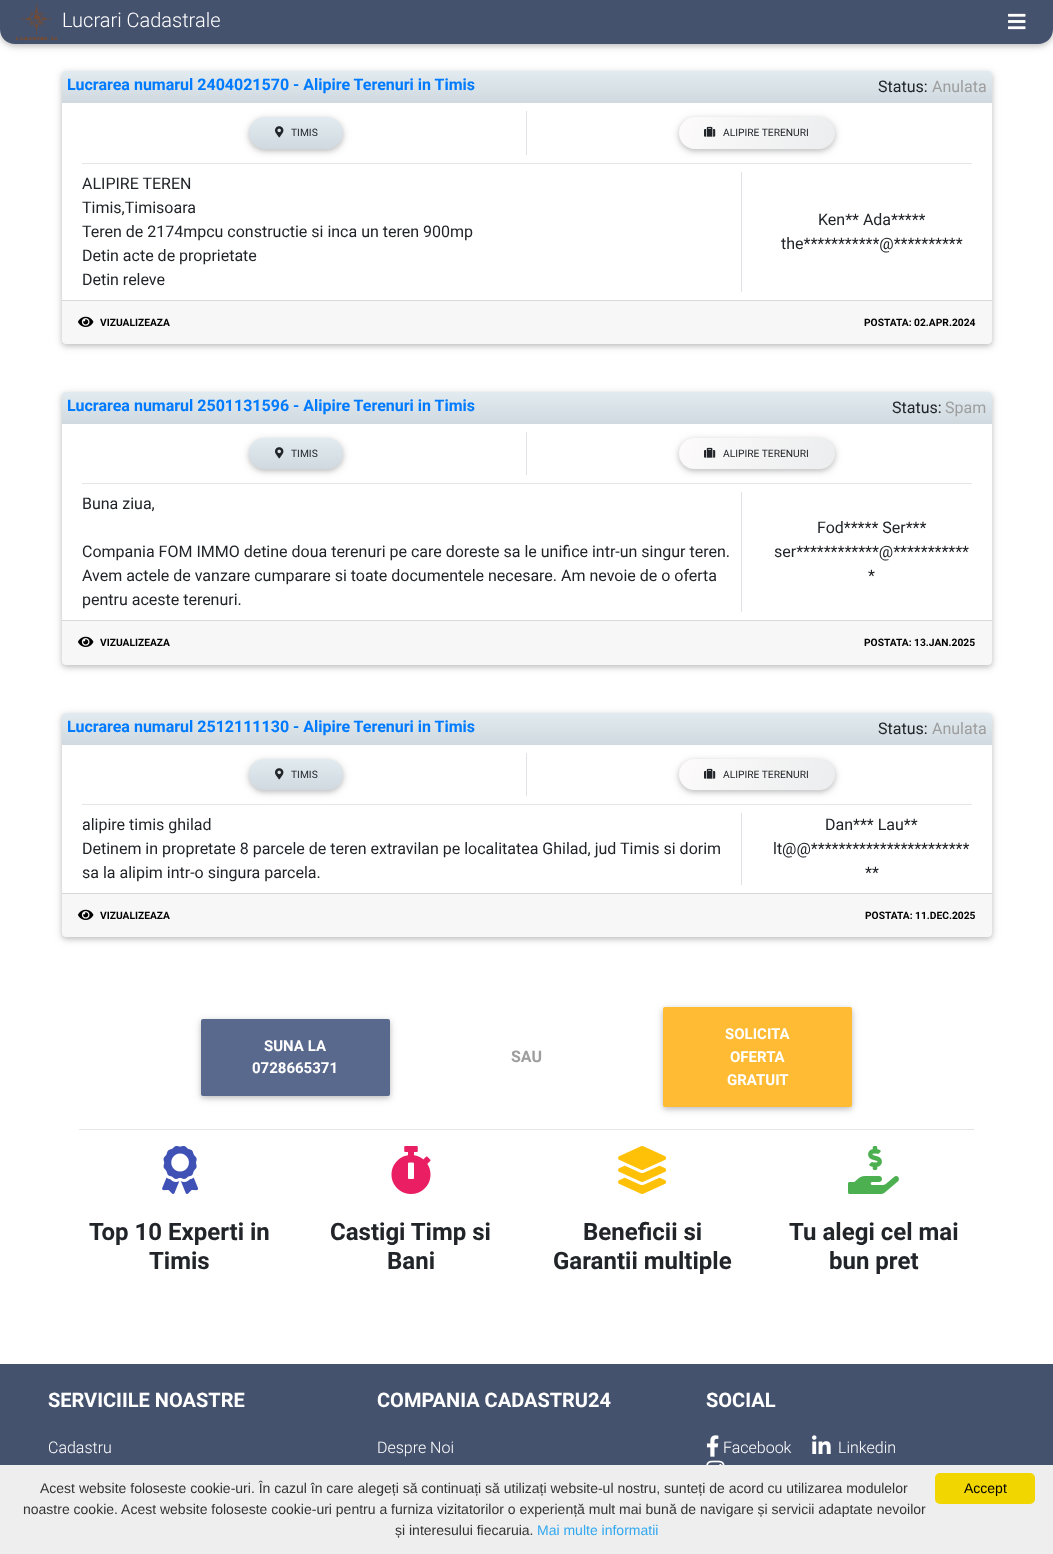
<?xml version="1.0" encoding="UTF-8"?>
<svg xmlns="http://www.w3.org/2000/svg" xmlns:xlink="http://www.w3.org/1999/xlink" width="1053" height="1554">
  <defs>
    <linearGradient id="g1" gradientUnits="userSpaceOnUse" x1="527" y1="103" x2="527" y2="71"><stop offset="0" stop-color="#cfd9df" /><stop offset="1" stop-color="#e2ebf0" /></linearGradient>
    <linearGradient id="g2" gradientUnits="userSpaceOnUse" x1="296" y1="149" x2="296" y2="117"><stop offset="0" stop-color="#cfd9df" /><stop offset="1" stop-color="#e2ebf0" /></linearGradient>
    <linearGradient id="g3" gradientUnits="userSpaceOnUse" x1="692" y1="95" x2="822" y2="171"><stop offset="0" stop-color="#fdfbfb" /><stop offset="1" stop-color="#ebedee" /></linearGradient>
    <linearGradient id="g4" gradientUnits="userSpaceOnUse" x1="527" y1="424" x2="527" y2="392"><stop offset="0" stop-color="#cfd9df" /><stop offset="1" stop-color="#e2ebf0" /></linearGradient>
    <linearGradient id="g5" gradientUnits="userSpaceOnUse" x1="296" y1="469" x2="296" y2="438"><stop offset="0" stop-color="#cfd9df" /><stop offset="1" stop-color="#e2ebf0" /></linearGradient>
    <linearGradient id="g6" gradientUnits="userSpaceOnUse" x1="692" y1="416" x2="822" y2="491"><stop offset="0" stop-color="#fdfbfb" /><stop offset="1" stop-color="#ebedee" /></linearGradient>
    <linearGradient id="g7" gradientUnits="userSpaceOnUse" x1="527" y1="745" x2="527" y2="713"><stop offset="0" stop-color="#cfd9df" /><stop offset="1" stop-color="#e2ebf0" /></linearGradient>
    <linearGradient id="g8" gradientUnits="userSpaceOnUse" x1="296" y1="790" x2="296" y2="759"><stop offset="0" stop-color="#cfd9df" /><stop offset="1" stop-color="#e2ebf0" /></linearGradient>
    <linearGradient id="g9" gradientUnits="userSpaceOnUse" x1="692" y1="737" x2="822" y2="812"><stop offset="0" stop-color="#fdfbfb" /><stop offset="1" stop-color="#ebedee" /></linearGradient>
  </defs>
  <rect width="100%" height="100%" fill="#ffffff" />
  <rect y="2" width="1053" height="44" rx="15" fill="#000000" fill-opacity="0.12" filter="blur(5px)" />
  <rect y="2" width="1053" height="44" rx="15" fill="#000000" fill-opacity="0.16" filter="blur(2.5px)" />
  <path d="M 0 0 h 1053 v 29 c 0 8.5 -6.5 15 -15 15 h -1023 c -8.5 0 -15 -6.5 -15 -15 z" fill="#45526e" />
  <image x="16" y="4" width="41" height="36" xlink:href="image1.png" />
  <image x="1008" y="13" width="18" height="17" xlink:href="image2.png" />
  <rect x="62" y="73" width="930" height="273" rx="4" fill="#000000" fill-opacity="0.12" filter="blur(5px)" />
  <rect x="62" y="73" width="930" height="273" rx="4" fill="#000000" fill-opacity="0.16" filter="blur(2.5px)" />
  <rect x="62" y="71" width="930" height="273" rx="4" fill="#ffffff" />
  <path d="M 65 71 h 924 c 1.5 0 3 1.5 3 3 v 29 h -930 v -29 c 0 -1.5 1.5 -3 3 -3 z" fill="url(#g1)" />
  <rect x="526" y="111" width="1" height="44" fill="#dee2e6" />
  <rect x="82" y="163" width="890" height="1" fill="#e6e6e6" />
  <rect x="249" y="119" width="94" height="32" rx="16" fill="#000000" fill-opacity="0.12" filter="blur(5px)" />
  <rect x="249" y="119" width="94" height="32" rx="16" fill="#000000" fill-opacity="0.16" filter="blur(2.5px)" />
  <rect x="249" y="117" width="94" height="32" rx="16" fill="url(#g2)" />
  <image x="275" y="126" width="9" height="12" xlink:href="image3.png" />
  <rect x="679" y="119" width="156" height="32" rx="16" fill="#000000" fill-opacity="0.12" filter="blur(5px)" />
  <rect x="679" y="119" width="156" height="32" rx="16" fill="#000000" fill-opacity="0.16" filter="blur(2.5px)" />
  <rect x="679" y="117" width="156" height="32" rx="16" fill="url(#g3)" />
  <image x="704" y="126" width="12" height="11" xlink:href="image4.png" />
  <rect x="741" y="172" width="1" height="120" fill="#dee2e6" />
  <rect x="62" y="301" width="930" height="43" fill="#000000" fill-opacity="0.03" />
  <rect x="62" y="300" width="930" height="1" fill="#d8d8d8" />
  <image x="78" y="316" width="16" height="11" xlink:href="image5.png" />
  <rect x="62" y="394" width="930" height="273" rx="4" fill="#000000" fill-opacity="0.12" filter="blur(5px)" />
  <rect x="62" y="394" width="930" height="273" rx="4" fill="#000000" fill-opacity="0.16" filter="blur(2.5px)" />
  <rect x="62" y="392" width="930" height="273" rx="4" fill="#ffffff" />
  <path d="M 65 392 h 924 c 1.5 0 3 1.5 3 3 v 29 h -930 v -29 c 0 -1.5 1.5 -3 3 -3 z" fill="url(#g4)" />
  <rect x="526" y="432" width="1" height="43" fill="#dee2e6" />
  <rect x="82" y="483" width="890" height="1" fill="#e6e6e6" />
  <rect x="249" y="440" width="94" height="31" rx="15.5" fill="#000000" fill-opacity="0.12" filter="blur(5px)" />
  <rect x="249" y="440" width="94" height="31" rx="15.5" fill="#000000" fill-opacity="0.16" filter="blur(2.5px)" />
  <rect x="249" y="438" width="94" height="31" rx="15.5" fill="url(#g5)" />
  <image x="275" y="447" width="9" height="12" xlink:href="image6.png" />
  <rect x="679" y="440" width="156" height="31" rx="15.5" fill="#000000" fill-opacity="0.12" filter="blur(5px)" />
  <rect x="679" y="440" width="156" height="31" rx="15.5" fill="#000000" fill-opacity="0.16" filter="blur(2.5px)" />
  <rect x="679" y="438" width="156" height="31" rx="15.5" fill="url(#g6)" />
  <image x="704" y="447" width="12" height="11" xlink:href="image4.png" />
  <rect x="741" y="492" width="1" height="120" fill="#dee2e6" />
  <rect x="62" y="621" width="930" height="44" fill="#000000" fill-opacity="0.03" />
  <rect x="62" y="620" width="930" height="1" fill="#d8d8d8" />
  <image x="78" y="636" width="16" height="11" xlink:href="image5.png" />
  <rect x="62" y="715" width="930" height="224" rx="4" fill="#000000" fill-opacity="0.12" filter="blur(5px)" />
  <rect x="62" y="715" width="930" height="224" rx="4" fill="#000000" fill-opacity="0.16" filter="blur(2.5px)" />
  <rect x="62" y="713" width="930" height="224" rx="4" fill="#ffffff" />
  <path d="M 65 713 h 924 c 1.5 0 3 1.5 3 3 v 29 h -930 v -29 c 0 -1.5 1.5 -3 3 -3 z" fill="url(#g7)" />
  <rect x="526" y="753" width="1" height="43" fill="#dee2e6" />
  <rect x="82" y="804" width="890" height="1" fill="#e6e6e6" />
  <rect x="249" y="761" width="94" height="31" rx="15.5" fill="#000000" fill-opacity="0.12" filter="blur(5px)" />
  <rect x="249" y="761" width="94" height="31" rx="15.5" fill="#000000" fill-opacity="0.16" filter="blur(2.5px)" />
  <rect x="249" y="759" width="94" height="31" rx="15.5" fill="url(#g8)" />
  <image x="275" y="768" width="9" height="12" xlink:href="image6.png" />
  <rect x="679" y="761" width="156" height="31" rx="15.5" fill="#000000" fill-opacity="0.12" filter="blur(5px)" />
  <rect x="679" y="761" width="156" height="31" rx="15.5" fill="#000000" fill-opacity="0.16" filter="blur(2.5px)" />
  <rect x="679" y="759" width="156" height="31" rx="15.5" fill="url(#g9)" />
  <image x="704" y="768" width="12" height="11" xlink:href="image4.png" />
  <rect x="741" y="813" width="1" height="72" fill="#dee2e6" />
  <rect x="62" y="894" width="930" height="43" fill="#000000" fill-opacity="0.03" />
  <rect x="62" y="893" width="930" height="1" fill="#d8d8d8" />
  <image x="78" y="909" width="16" height="11" xlink:href="image5.png" />
  <rect x="201" y="1021" width="189" height="77" rx="2" fill="#000000" fill-opacity="0.12" filter="blur(5px)" />
  <rect x="201" y="1021" width="189" height="77" rx="2" fill="#000000" fill-opacity="0.16" filter="blur(2.5px)" />
  <rect x="201" y="1019" width="189" height="77" rx="2" fill="#59698d" />
  <rect x="663" y="1009" width="189" height="100" rx="2" fill="#000000" fill-opacity="0.12" filter="blur(5px)" />
  <rect x="663" y="1009" width="189" height="100" rx="2" fill="#000000" fill-opacity="0.16" filter="blur(2.5px)" />
  <rect x="663" y="1007" width="189" height="100" rx="2" fill="#ffbb33" />
  <rect x="79" y="1129" width="895" height="1" fill="#e6e6e6" />
  <image x="162" y="1146" width="37" height="48" xlink:href="image7.png" />
  <image x="391" y="1146" width="40" height="48" xlink:href="image8.png" />
  <image x="618" y="1146" width="49" height="48" xlink:href="image9.png" />
  <image x="848" y="1146" width="51" height="48" xlink:href="image10.png" />
  <rect y="1364" width="1053" height="101" fill="#45526e" />
  <image x="706" y="1435" width="13" height="22" xlink:href="image11.png" />
  <image x="812" y="1435" width="19" height="19" xlink:href="image12.png" />
  <image x="706" y="1460" width="19" height="5" xlink:href="image13.png" />
  <rect y="1465" width="1053" height="89" fill="#eeeeee" />
  <rect x="935" y="1473" width="100" height="31" rx="5" fill="#f1d600" />
  <text x="62" y="27" style="font-family: Roboto; font-size: 20px; font-weight: 300; fill: #ffffff">Lucrari Cadastrale</text>
  <text x="67" y="90" style="font-family: Roboto; font-size: 16px; font-weight: bold; fill: #007bff">Lucrarea numarul 2404021570 - Alipire Terenuri in Timis</text>
  <text x="878" y="92" style="font-family: Roboto; font-size: 16px; fill: #212529">Status:</text>
  <text x="932" y="92" style="font-family: Roboto; font-size: 16px; fill: #9e9e9e">Anulata</text>
  <text x="291" y="136" style="font-family: Roboto; font-size: 10.25px; fill: #212529">TIMIS</text>
  <text x="723" y="136" style="font-family: Roboto; font-size: 10.25px; fill: #212529">ALIPIRE TERENURI</text>
  <text x="82" y="189" style="font-family: Roboto; font-size: 16px; fill: #212529">ALIPIRE TEREN</text>
  <text x="82" y="213" style="font-family: Roboto; font-size: 16px; fill: #212529">Timis,Timisoara</text>
  <text x="82" y="237" style="font-family: Roboto; font-size: 16px; fill: #212529">Teren de 2174mpcu constructie si inca un teren 900mp</text>
  <text x="82" y="261" style="font-family: Roboto; font-size: 16px; fill: #212529">Detin acte de proprietate</text>
  <text x="82" y="285" style="font-family: Roboto; font-size: 16px; fill: #212529">Detin releve</text>
  <text x="818" y="225" style="font-family: Roboto; font-size: 16px; fill: #212529">Ken** Ada*****</text>
  <text x="781" y="249" style="font-family: Roboto; font-size: 16px; fill: #212529">the***********@**********</text>
  <text x="100" y="326" style="font-family: Roboto; font-size: 10.25px; font-weight: bold; fill: #000000">VIZUALIZEAZA</text>
  <text x="864" y="326" style="font-family: Roboto; font-size: 10.25px; font-weight: bold; fill: #000000">POSTATA: 02.APR.2024</text>
  <text x="67" y="411" style="font-family: Roboto; font-size: 16px; font-weight: bold; fill: #007bff">Lucrarea numarul 2501131596 - Alipire Terenuri in Timis</text>
  <text x="892" y="413" style="font-family: Roboto; font-size: 16px; fill: #212529">Status:</text>
  <text x="945" y="413" style="font-family: Roboto; font-size: 16px; fill: #9e9e9e">Spam</text>
  <text x="291" y="457" style="font-family: Roboto; font-size: 10.25px; fill: #212529">TIMIS</text>
  <text x="723" y="457" style="font-family: Roboto; font-size: 10.25px; fill: #212529">ALIPIRE TERENURI</text>
  <text x="82" y="509" style="font-family: Roboto; font-size: 16px; fill: #212529">Buna ziua,</text>
  <text x="82" y="557" style="font-family: Roboto; font-size: 16px; fill: #212529">Compania FOM IMMO detine doua terenuri pe care doreste sa le unifice intr-un singur teren.</text>
  <text x="82" y="581" style="font-family: Roboto; font-size: 16px; fill: #212529">Avem actele de vanzare cumparare si toate documentele necesare. Am nevoie de o oferta</text>
  <text x="82" y="605" style="font-family: Roboto; font-size: 16px; fill: #212529">pentru aceste terenuri.</text>
  <text x="817" y="533" style="font-family: Roboto; font-size: 16px; fill: #212529">Fod***** Ser***</text>
  <text x="774" y="557" style="font-family: Roboto; font-size: 16px; fill: #212529">ser************@***********</text>
  <text x="868" y="581" style="font-family: Roboto; font-size: 16px; fill: #212529">*</text>
  <text x="100" y="646" style="font-family: Roboto; font-size: 10.25px; font-weight: bold; fill: #000000">VIZUALIZEAZA</text>
  <text x="864" y="646" style="font-family: Roboto; font-size: 10.25px; font-weight: bold; fill: #000000">POSTATA: 13.JAN.2025</text>
  <text x="67" y="732" style="font-family: Roboto; font-size: 16px; font-weight: bold; fill: #007bff">Lucrarea numarul 2512111130 - Alipire Terenuri in Timis</text>
  <text x="878" y="734" style="font-family: Roboto; font-size: 16px; fill: #212529">Status:</text>
  <text x="932" y="734" style="font-family: Roboto; font-size: 16px; fill: #9e9e9e">Anulata</text>
  <text x="291" y="778" style="font-family: Roboto; font-size: 10.25px; fill: #212529">TIMIS</text>
  <text x="723" y="778" style="font-family: Roboto; font-size: 10.25px; fill: #212529">ALIPIRE TERENURI</text>
  <text x="82" y="830" style="font-family: Roboto; font-size: 16px; fill: #212529">alipire timis ghilad</text>
  <text x="82" y="854" style="font-family: Roboto; font-size: 16px; fill: #212529">Detinem in propretate 8 parcele de teren extravilan pe localitatea Ghilad, jud Timis si dorim</text>
  <text x="82" y="878" style="font-family: Roboto; font-size: 16px; fill: #212529">sa la alipim intr-o singura parcela.</text>
  <text x="825" y="830" style="font-family: Roboto; font-size: 16px; fill: #212529">Dan*** Lau**</text>
  <text x="773" y="854" style="font-family: Roboto; font-size: 16px; fill: #212529">lt@@***********************</text>
  <text x="865" y="878" style="font-family: Roboto; font-size: 16px; fill: #212529">**</text>
  <text x="100" y="919" style="font-family: Roboto; font-size: 10.25px; font-weight: bold; fill: #000000">VIZUALIZEAZA</text>
  <text x="865" y="919" style="font-family: Roboto; font-size: 10.25px; font-weight: bold; fill: #000000">POSTATA: 11.DEC.2025</text>
  <text x="264" y="1051" style="font-family: Roboto; font-size: 15px; font-weight: bold; fill: #ffffff">SUNA LA</text>
  <text x="252" y="1073" style="font-family: Roboto; font-size: 15px; font-weight: bold; fill: #ffffff">0728665371</text>
  <text x="511" y="1062" style="font-family: Roboto; font-size: 16px; font-weight: bold; fill: #9e9e9e">SAU</text>
  <text x="725" y="1039" style="font-family: Roboto; font-size: 15px; font-weight: bold; fill: #ffffff">SOLICITA</text>
  <text x="730" y="1062" style="font-family: Roboto; font-size: 15px; font-weight: bold; fill: #ffffff">OFERTA</text>
  <text x="727" y="1085" style="font-family: Roboto; font-size: 15px; font-weight: bold; fill: #ffffff">GRATUIT</text>
  <text x="89" y="1240" style="font-family: Roboto; font-size: 24px; font-weight: bold; fill: #212529">Top 10 Experti in</text>
  <text x="149" y="1269" style="font-family: Roboto; font-size: 24px; font-weight: bold; fill: #212529">Timis</text>
  <text x="330" y="1240" style="font-family: Roboto; font-size: 24px; font-weight: bold; fill: #212529">Castigi Timp si</text>
  <text x="387" y="1269" style="font-family: Roboto; font-size: 24px; font-weight: bold; fill: #212529">Bani</text>
  <text x="583" y="1240" style="font-family: Roboto; font-size: 24px; font-weight: bold; fill: #212529">Beneficii si</text>
  <text x="553" y="1269" style="font-family: Roboto; font-size: 24px; font-weight: bold; fill: #212529">Garantii multiple</text>
  <text x="789" y="1240" style="font-family: Roboto; font-size: 24px; font-weight: bold; fill: #212529">Tu alegi cel mai</text>
  <text x="829" y="1269" style="font-family: Roboto; font-size: 24px; font-weight: bold; fill: #212529">bun pret</text>
  <text x="48" y="1407" style="font-family: Roboto; font-size: 20px; font-weight: bold; fill: #ffffff">SERVICIILE NOASTRE</text>
  <text x="48" y="1453" style="font-family: Roboto; font-size: 16px; font-weight: 300; fill: #ffffff">Cadastru</text>
  <text x="377" y="1407" style="font-family: Roboto; font-size: 20px; font-weight: bold; fill: #ffffff">COMPANIA CADASTRU24</text>
  <text x="377" y="1453" style="font-family: Roboto; font-size: 16px; font-weight: 300; fill: #ffffff">Despre Noi</text>
  <text x="706" y="1407" style="font-family: Roboto; font-size: 20px; font-weight: bold; fill: #ffffff">SOCIAL</text>
  <text x="723" y="1453" style="font-family: Roboto; font-size: 16px; font-weight: 300; fill: #ffffff">Facebook</text>
  <text x="838" y="1453" style="font-family: Roboto; font-size: 16px; font-weight: 300; fill: #ffffff">Linkedin</text>
  <text x="40" y="1493" style="font-family: Liberation Sans; font-size: 14px; fill: #333333">Acest website foloseste cookie-uri. În cazul în care alegeți să continuați să utilizați website-ul nostru, sunteți de acord cu utilizarea modulelor</text>
  <text x="23" y="1514" style="font-family: Liberation Sans; font-size: 14px; fill: #333333">noastre cookie. Acest website foloseste cookie-uri pentru a furniza vizitatorilor o experiență mult mai bună de navigare și servicii adaptate nevoilor</text>
  <text x="395" y="1535" style="font-family: Liberation Sans; font-size: 14px; fill: #333333">și interesului fiecaruia.</text>
  <text x="537" y="1535" style="font-family: Liberation Sans; font-size: 14px; fill: #31a8f0">Mai multe informatii</text>
  <text x="964" y="1493" style="font-family: Liberation Sans; font-size: 14px; fill: #000000">Accept</text>
</svg>
